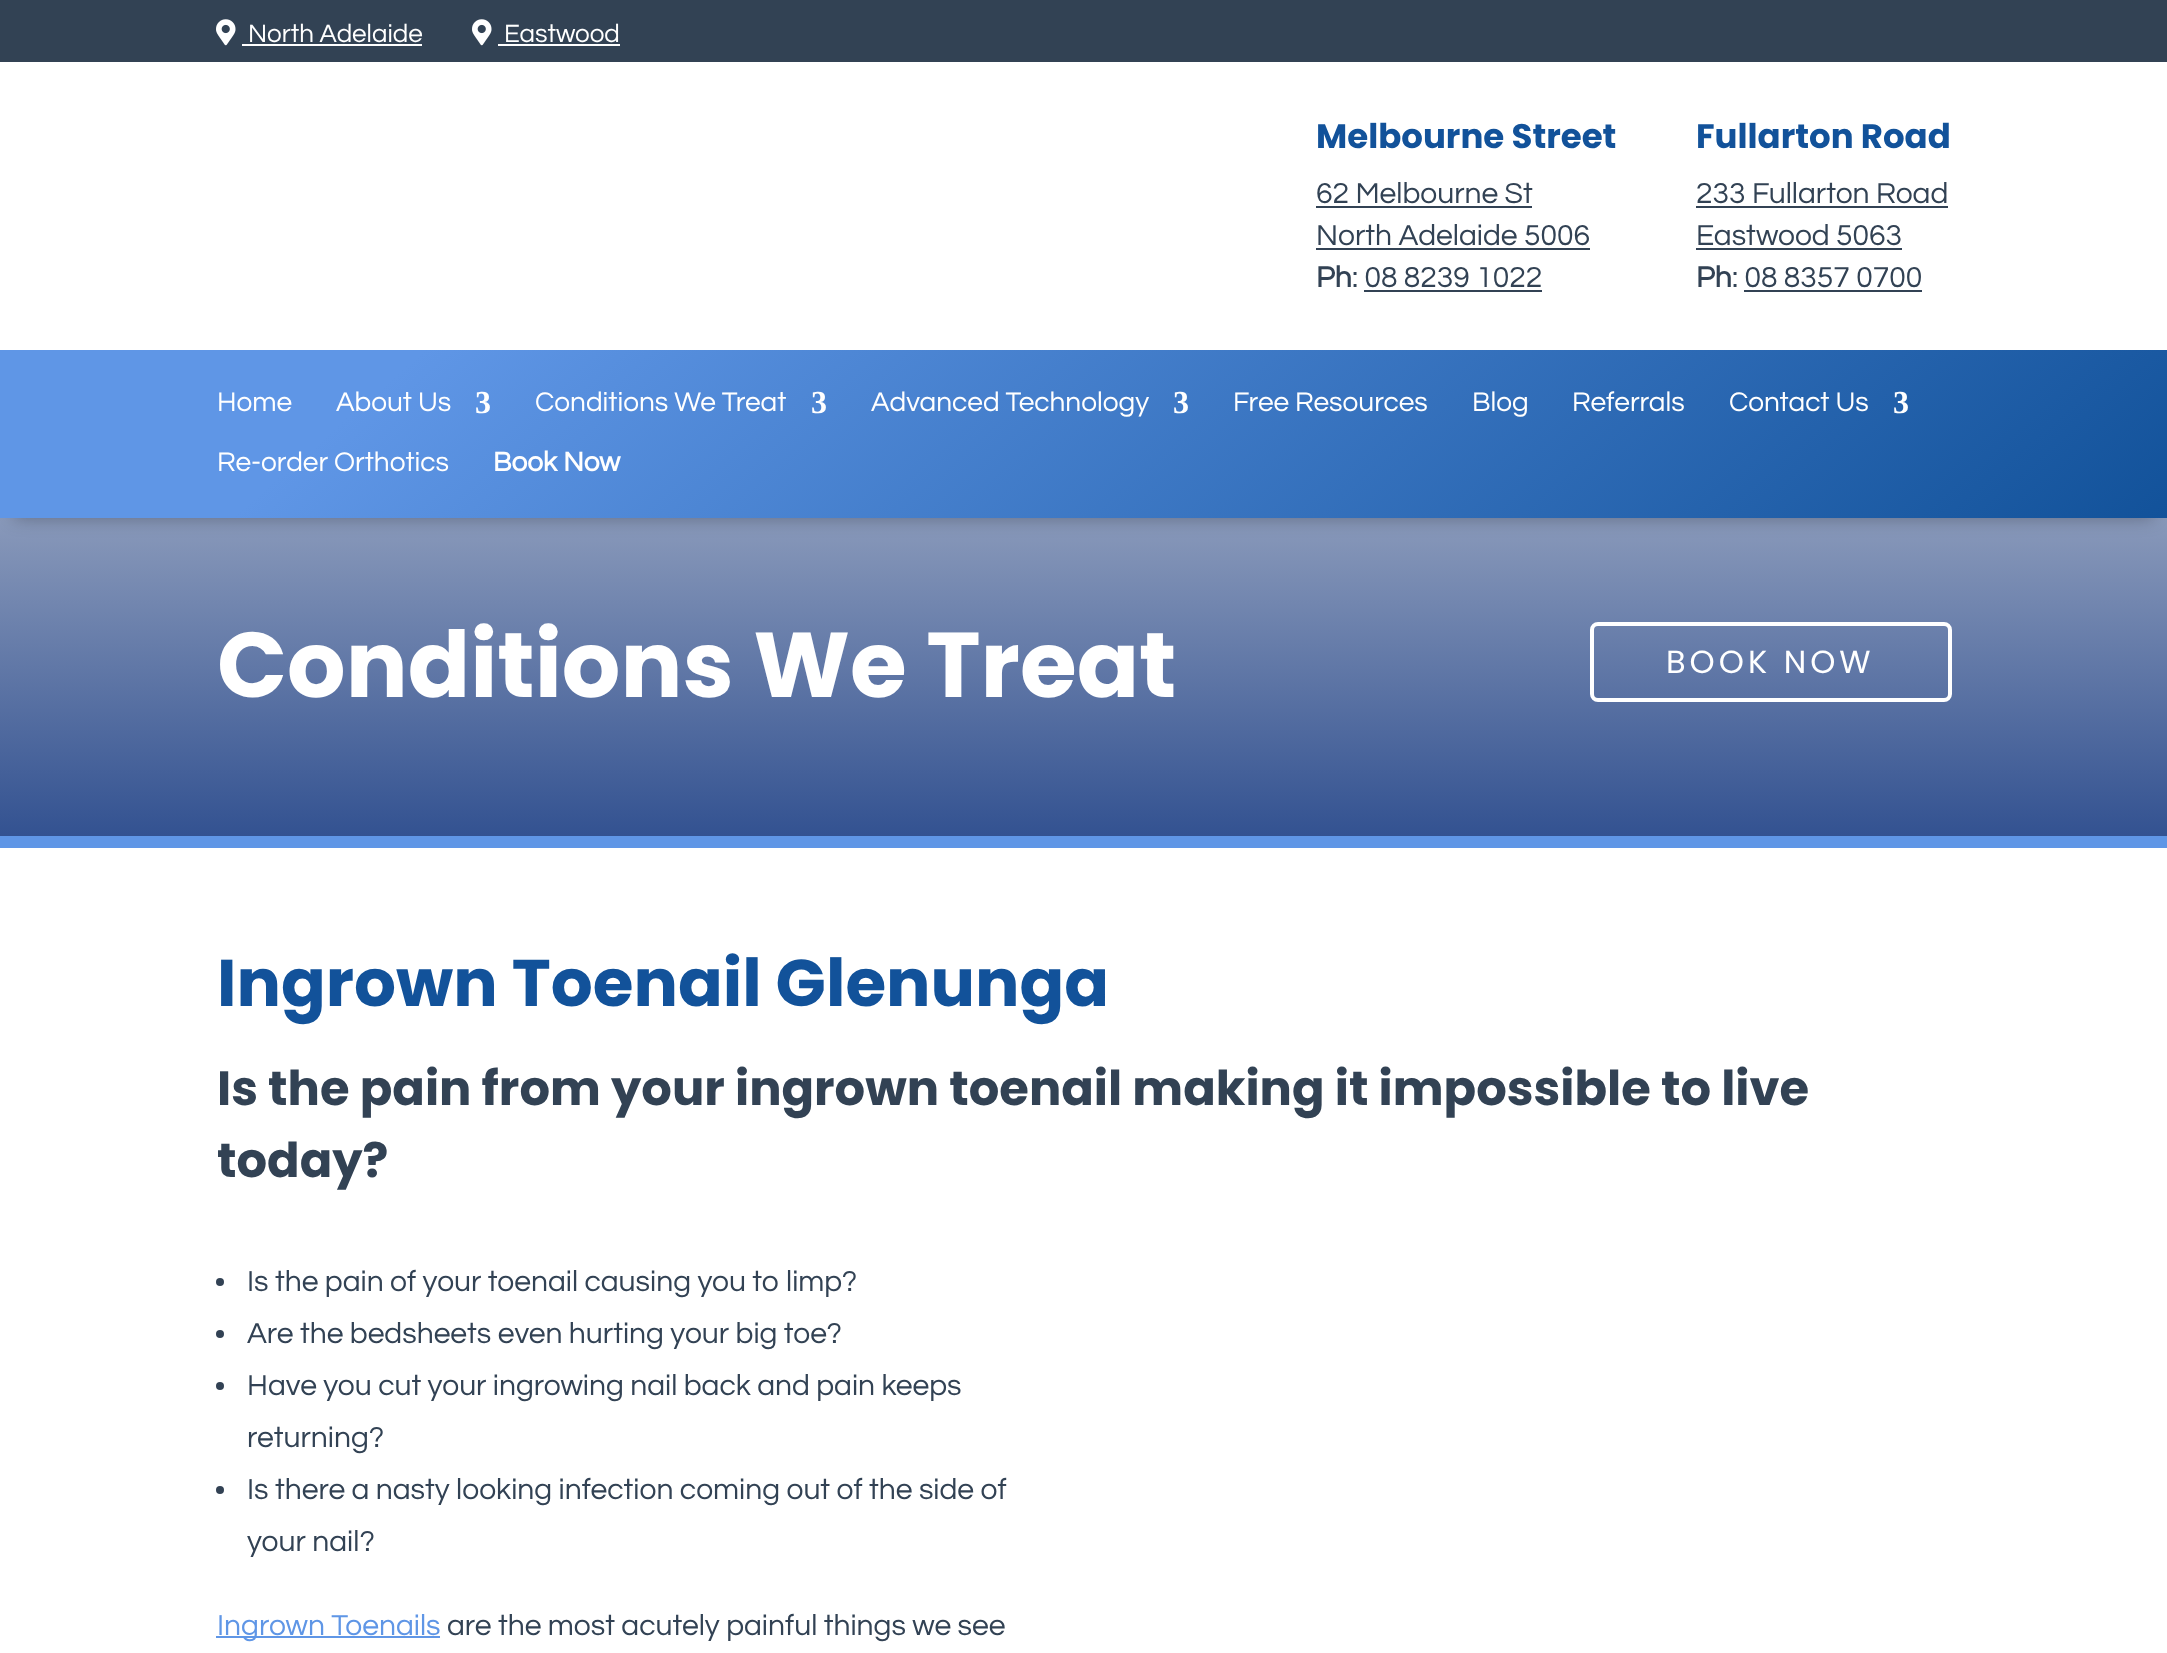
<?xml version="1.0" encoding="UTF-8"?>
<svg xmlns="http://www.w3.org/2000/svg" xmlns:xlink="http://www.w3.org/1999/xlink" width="2167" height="1653">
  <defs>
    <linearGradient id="g1" gradientUnits="userSpaceOnUse" x1="1084" y1="518" x2="1084" y2="836"><stop offset="0" stop-color="#8999ba" /><stop offset="1" stop-color="#335291" /></linearGradient>
    <linearGradient id="g2" gradientUnits="userSpaceOnUse" x1="576" y1="-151" x2="1592" y2="1019"><stop offset="0.18" stop-color="#5f96e6" /><stop offset="1" stop-color="#12529a" /></linearGradient>
  </defs>
  <rect width="100%" height="100%" fill="#ffffff" />
  <rect width="2167" height="62" fill="#324254" />
  <image x="216" y="19" width="20" height="27" xlink:href="image1.png" />
  <rect x="242" y="44" width="180" height="2" fill="#ffffff" />
  <image x="472" y="19" width="20" height="27" xlink:href="image1.png" />
  <rect x="498" y="44" width="122" height="2" fill="#ffffff" />
  <rect x="1316" y="206" width="216" height="2" fill="#324254" />
  <rect x="1316" y="248" width="274" height="2" fill="#324254" />
  <rect x="1364" y="290" width="178" height="2" fill="#324254" />
  <rect x="1696" y="206" width="252" height="2" fill="#324254" />
  <rect x="1696" y="248" width="206" height="2" fill="#324254" />
  <rect x="1744" y="290" width="178" height="2" fill="#324254" />
  <rect y="518" width="2167" height="318" fill="url(#g1)" />
  <rect x="14" y="378" width="2140" height="140" fill="#000000" fill-opacity="0.3" filter="blur(9px)" />
  <rect y="350" width="2167" height="168" fill="url(#g2)" />
  <rect y="836" width="2167" height="12" fill="#5f96e6" />
  <rect x="1592" y="624" width="358" height="76" rx="6" fill="none" stroke="#ffffff" stroke-width="4" />
  <circle cx="220" cy="1282" r="4" fill="#324254" />
  <circle cx="220" cy="1334" r="4" fill="#324254" />
  <circle cx="220" cy="1386" r="4" fill="#324254" />
  <circle cx="220" cy="1490" r="4" fill="#324254" />
  <rect x="216" y="1636" width="224" height="2" fill="#5f96e6" />
  <text x="248" y="42" style="font-family: Questrial; font-size: 26px; fill: #ffffff">North Adelaide</text>
  <text x="504" y="42" style="font-family: Questrial; font-size: 26px; fill: #ffffff">Eastwood</text>
  <text x="1316" y="148" style="font-family: Poppins; font-size: 34px; font-weight: bold; fill: #12529a">Melbourne Street</text>
  <text x="1316" y="203" style="font-family: Questrial; font-size: 30px; fill: #324254">62 Melbourne St</text>
  <text x="1316" y="245" style="font-family: Questrial; font-size: 30px; fill: #324254">North Adelaide 5006</text>
  <text x="1316" y="287" style="font-family: Questrial; font-size: 30px; font-weight: bold; fill: #324254">Ph</text>
  <text x="1352" y="287" style="font-family: Questrial; font-size: 30px; fill: #324254">: 08 8239 1022</text>
  <text x="1696" y="148" style="font-family: Poppins; font-size: 34px; font-weight: bold; fill: #12529a">Fullarton Road</text>
  <text x="1696" y="203" style="font-family: Questrial; font-size: 30px; fill: #324254">233 Fullarton Road</text>
  <text x="1696" y="245" style="font-family: Questrial; font-size: 30px; fill: #324254">Eastwood 5063</text>
  <text x="1696" y="287" style="font-family: Questrial; font-size: 30px; font-weight: bold; fill: #324254">Ph</text>
  <text x="1732" y="287" style="font-family: Questrial; font-size: 30px; fill: #324254">: 08 8357 0700</text>
  <text x="217" y="411" style="font-family: Questrial; font-size: 28px; fill: #ffffff">Home</text>
  <text x="336" y="411" style="font-family: Questrial; font-size: 28px; fill: #ffffff">About Us</text>
  <text x="475" y="413" style="font-family: Liberation Serif; font-size: 32px; font-weight: bold; fill: #ffffff">3</text>
  <text x="535" y="411" style="font-family: Questrial; font-size: 28px; fill: #ffffff">Conditions We Treat</text>
  <text x="811" y="413" style="font-family: Liberation Serif; font-size: 32px; font-weight: bold; fill: #ffffff">3</text>
  <text x="871" y="411" style="font-family: Questrial; font-size: 28px; fill: #ffffff">Advanced Technology</text>
  <text x="1173" y="413" style="font-family: Liberation Serif; font-size: 32px; font-weight: bold; fill: #ffffff">3</text>
  <text x="1233" y="411" style="font-family: Questrial; font-size: 28px; fill: #ffffff">Free Resources</text>
  <text x="1472" y="411" style="font-family: Questrial; font-size: 28px; fill: #ffffff">Blog</text>
  <text x="1572" y="411" style="font-family: Questrial; font-size: 28px; fill: #ffffff">Referrals</text>
  <text x="1729" y="411" style="font-family: Questrial; font-size: 28px; fill: #ffffff">Contact Us</text>
  <text x="1893" y="413" style="font-family: Liberation Serif; font-size: 32px; font-weight: bold; fill: #ffffff">3</text>
  <text x="217" y="471" style="font-family: Questrial; font-size: 28px; fill: #ffffff">Re-order Orthotics</text>
  <text x="493" y="471" style="font-family: Questrial; font-size: 28px; font-weight: bold; fill: #ffffff">Book Now</text>
  <text x="217" y="697" style="font-family: Poppins; font-size: 92px; font-weight: bold; fill: #ffffff">Conditions We Treat</text>
  <text x="1666" y="673" style="font-family: Poppins; font-size: 32px; letter-spacing: 4px; fill: #ffffff">BOOK NOW</text>
  <text x="217" y="1006" style="font-family: Poppins; font-size: 66px; font-weight: bold; fill: #12529a">Ingrown Toenail Glenunga</text>
  <text x="217" y="1105" style="font-family: Poppins; font-size: 48px; font-weight: bold; fill: #324254">Is the pain from your ingrown toenail making it impossible to live</text>
  <text x="217" y="1177" style="font-family: Poppins; font-size: 48px; font-weight: bold; fill: #324254">today?</text>
  <text x="247" y="1291" style="font-family: Questrial; font-size: 30px; fill: #324254">Is the pain of your toenail causing you to limp?</text>
  <text x="247" y="1343" style="font-family: Questrial; font-size: 30px; fill: #324254">Are the bedsheets even hurting your big toe?</text>
  <text x="247" y="1395" style="font-family: Questrial; font-size: 30px; fill: #324254">Have you cut your ingrowing nail back and pain keeps</text>
  <text x="247" y="1447" style="font-family: Questrial; font-size: 30px; fill: #324254">returning?</text>
  <text x="247" y="1499" style="font-family: Questrial; font-size: 30px; fill: #324254">Is there a nasty looking infection coming out of the side of</text>
  <text x="247" y="1551" style="font-family: Questrial; font-size: 30px; fill: #324254">your nail?</text>
  <text x="217" y="1635" style="font-family: Questrial; font-size: 30px; fill: #5f96e6">Ingrown Toenails</text>
  <text x="447" y="1635" style="font-family: Questrial; font-size: 30px; fill: #324254">are the most acutely painful things we see</text>
</svg>
